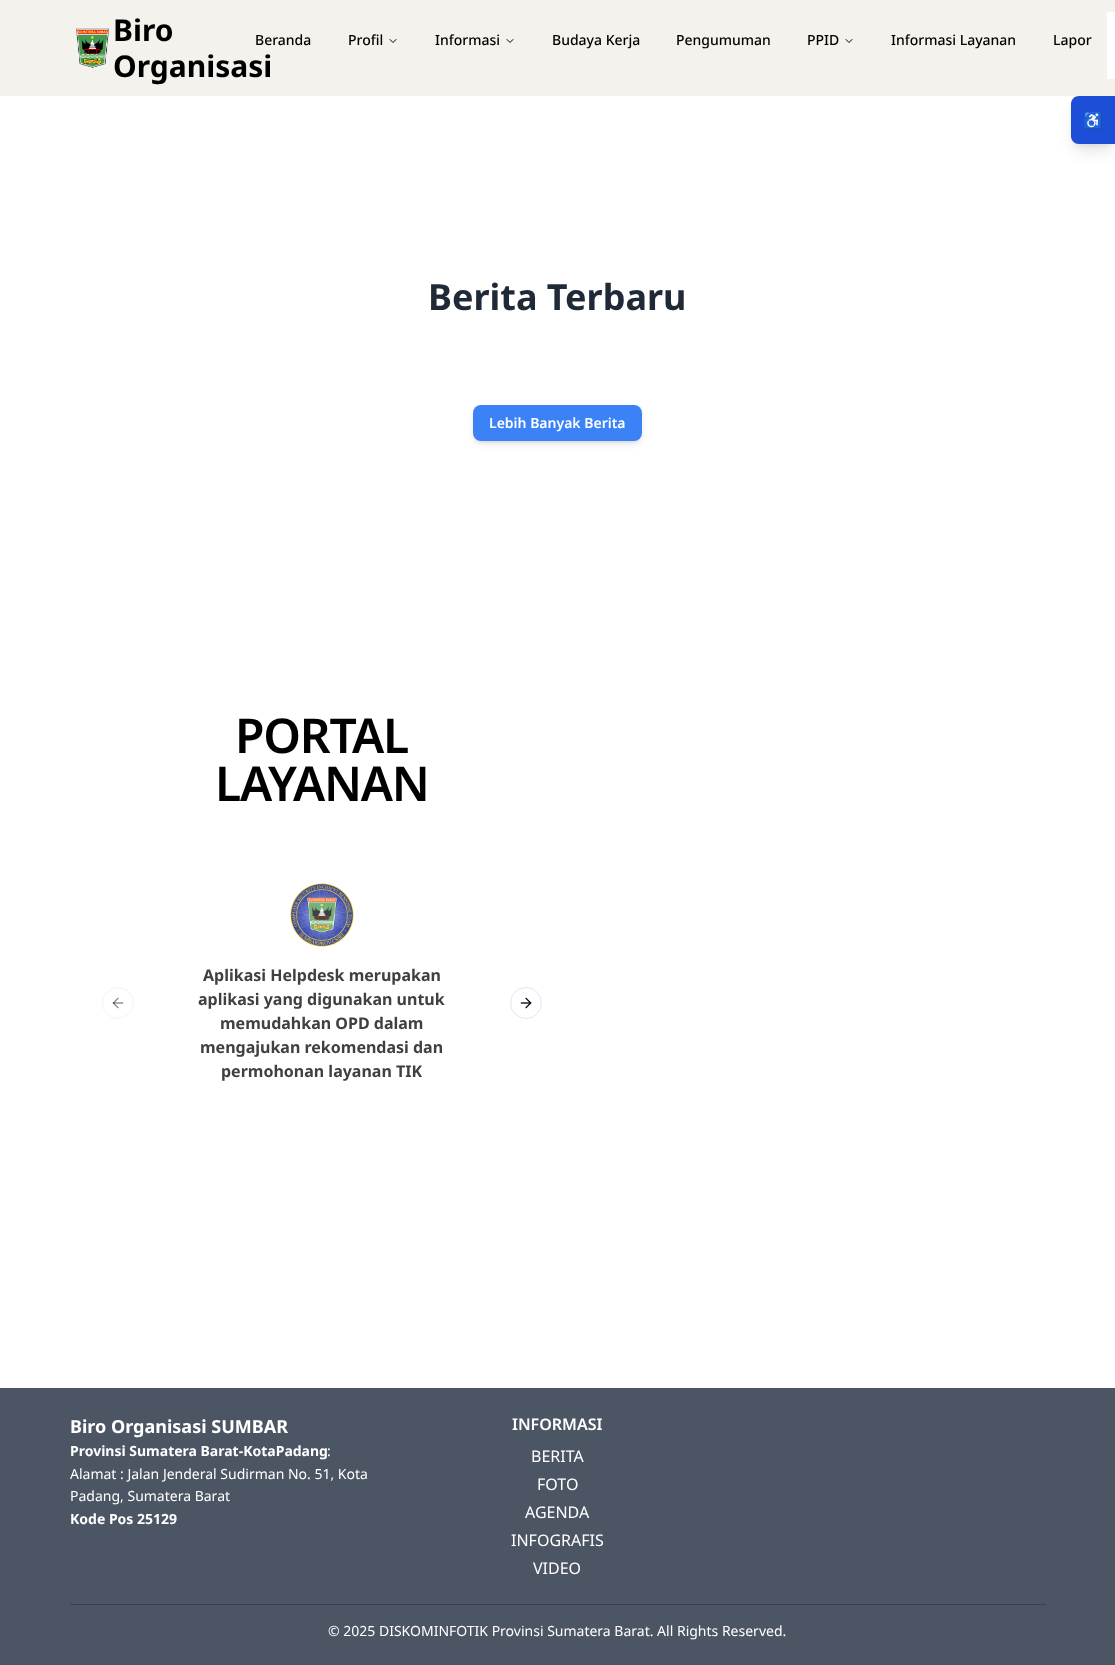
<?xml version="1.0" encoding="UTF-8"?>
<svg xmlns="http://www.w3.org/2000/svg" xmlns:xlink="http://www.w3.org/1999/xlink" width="1115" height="1665">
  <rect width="100%" height="100%" fill="#ffffff" />
  <rect width="1115" height="96" fill="#f3f2ec" />
  <image x="76" y="28" width="33" height="40" xlink:href="image1.png" />
  <path d="M 390 39.5 l 3 3 l 3 -3" fill="none" stroke="#000000" stroke-linecap="round" stroke-linejoin="round" />
  <path d="M 507 39.5 l 3 3 l 3 -3" fill="none" stroke="#000000" stroke-linecap="round" stroke-linejoin="round" />
  <path d="M 846 39.5 l 3 3 l 3 -3" fill="none" stroke="#000000" stroke-linecap="round" stroke-linejoin="round" />
  <rect x="1107" y="12" width="8" height="67" fill="#ffffff" />
  <rect x="1075" y="104" width="36" height="40" rx="4" fill="#000000" fill-opacity="0.1" filter="blur(3px)" />
  <rect x="1074" y="109" width="38" height="42" rx="5" fill="#000000" fill-opacity="0.1" filter="blur(7.5px)" />
  <path d="M 1079 96 h 36 v 48 h -36 c -4.5 0 -8 -3.5 -8 -8 v -32 c 0 -4.5 3.5 -8 8 -8 z" fill="#1d4ed8" />
  <rect x="475" y="409" width="165" height="32" rx="6" fill="#000000" fill-opacity="0.1" filter="blur(2px)" />
  <rect x="474" y="410" width="167" height="34" rx="7" fill="#000000" fill-opacity="0.1" filter="blur(3px)" />
  <rect x="473" y="405" width="169" height="36" rx="8" fill="#3b82f6" />
  <circle cx="118" cy="1003" r="15.5" fill="none" stroke="#f1f4f8" />
  <image x="112" y="997" width="12" height="12" xlink:href="image2.png" />
  <image x="290" y="883" width="64" height="64" xlink:href="image3.png" />
  <circle cx="526" cy="1003" r="15.5" fill="none" stroke="#e2e8f0" />
  <image x="520" y="997" width="12" height="12" xlink:href="image4.png" />
  <rect y="1388" width="1115" height="277" fill="#4b5563" />
  <rect x="70" y="1604" width="976" height="1" fill="#374151" />
  <text x="113" y="41" style="font-family: Noto Sans; font-size: 30px; font-weight: bold; fill: #000000">Biro</text>
  <text x="113" y="77" style="font-family: Noto Sans; font-size: 30px; font-weight: bold; fill: #000000">Organisasi</text>
  <text x="255" y="45" style="font-family: Noto Sans; font-size: 14px; font-weight: 500; fill: #000000">Beranda</text>
  <text x="348" y="45" style="font-family: Noto Sans; font-size: 14px; font-weight: 500; fill: #000000">Profil</text>
  <text x="435" y="45" style="font-family: Noto Sans; font-size: 14px; font-weight: 500; fill: #000000">Informasi</text>
  <text x="552" y="45" style="font-family: Noto Sans; font-size: 14px; font-weight: 500; fill: #000000">Budaya Kerja</text>
  <text x="676" y="45" style="font-family: Noto Sans; font-size: 14px; font-weight: 500; fill: #000000">Pengumuman</text>
  <text x="807" y="45" style="font-family: Noto Sans; font-size: 14px; font-weight: 500; fill: #000000">PPID</text>
  <text x="891" y="45" style="font-family: Noto Sans; font-size: 14px; font-weight: 500; fill: #000000">Informasi Layanan</text>
  <text x="1053" y="45" style="font-family: Noto Sans; font-size: 14px; font-weight: 500; fill: #000000">Lapor</text>
  <text x="1083" y="126" style="font-family: Noto Color Emoji; font-size: 16px; fill: #ffffff">♿</text>
  <text x="428" y="310" style="font-family: Noto Sans; font-size: 36px; font-weight: bold; fill: #1f2937">Berita Terbaru</text>
  <text x="489" y="428" style="font-family: Noto Sans; font-size: 14px; font-weight: 600; fill: #ffffff">Lebih Banyak Berita</text>
  <text x="235" y="753" style="font-family: Noto Sans; font-size: 48px; font-weight: 600; letter-spacing: -1.25px; fill: #000000">PORTAL</text>
  <text x="215" y="801" style="font-family: Noto Sans; font-size: 48px; font-weight: 600; letter-spacing: -1.25px; fill: #000000">LAYANAN</text>
  <text x="203" y="981" style="font-family: Noto Sans; font-size: 16px; font-weight: bold; fill: #404040">Aplikasi Helpdesk merupakan</text>
  <text x="198" y="1005" style="font-family: Noto Sans; font-size: 16px; font-weight: bold; fill: #404040">aplikasi yang digunakan untuk</text>
  <text x="220" y="1029" style="font-family: Noto Sans; font-size: 16px; font-weight: bold; fill: #404040">memudahkan OPD dalam</text>
  <text x="200" y="1053" style="font-family: Noto Sans; font-size: 16px; font-weight: bold; fill: #404040">mengajukan rekomendasi dan</text>
  <text x="221" y="1077" style="font-family: Noto Sans; font-size: 16px; font-weight: bold; fill: #404040">permohonan layanan TIK</text>
  <text x="70" y="1433" style="font-family: Noto Sans; font-size: 18px; font-weight: bold; fill: #ffffff">Biro Organisasi SUMBAR</text>
  <text x="70" y="1456" style="font-family: Noto Sans; font-size: 14px; font-weight: bold; fill: #ffffff">Provinsi Sumatera Barat-KotaPadang</text>
  <text x="327" y="1456" style="font-family: Noto Sans; font-size: 14px; fill: #ffffff">:</text>
  <text x="70" y="1479" style="font-family: Noto Sans; font-size: 14px; fill: #ffffff">Alamat : Jalan Jenderal Sudirman No. 51, Kota</text>
  <text x="70" y="1501" style="font-family: Noto Sans; font-size: 14px; fill: #ffffff">Padang, Sumatera Barat</text>
  <text x="70" y="1524" style="font-family: Noto Sans; font-size: 14px; font-weight: bold; fill: #ffffff">Kode Pos 25129</text>
  <text x="512" y="1430" style="font-family: Noto Sans; font-size: 16px; font-weight: 600; fill: #ffffff">INFORMASI</text>
  <text x="531" y="1462" style="font-family: Noto Sans; font-size: 16px; fill: #ffffff">BERITA</text>
  <text x="537" y="1490" style="font-family: Noto Sans; font-size: 16px; fill: #ffffff">FOTO</text>
  <text x="525" y="1518" style="font-family: Noto Sans; font-size: 16px; fill: #ffffff">AGENDA</text>
  <text x="511" y="1546" style="font-family: Noto Sans; font-size: 16px; fill: #ffffff">INFOGRAFIS</text>
  <text x="533" y="1574" style="font-family: Noto Sans; font-size: 16px; fill: #ffffff">VIDEO</text>
  <text x="328" y="1636" style="font-family: Noto Sans; font-size: 14px; fill: #ffffff">© 2025 DISKOMINFOTIK Provinsi Sumatera Barat. All Rights Reserved.</text>
</svg>
